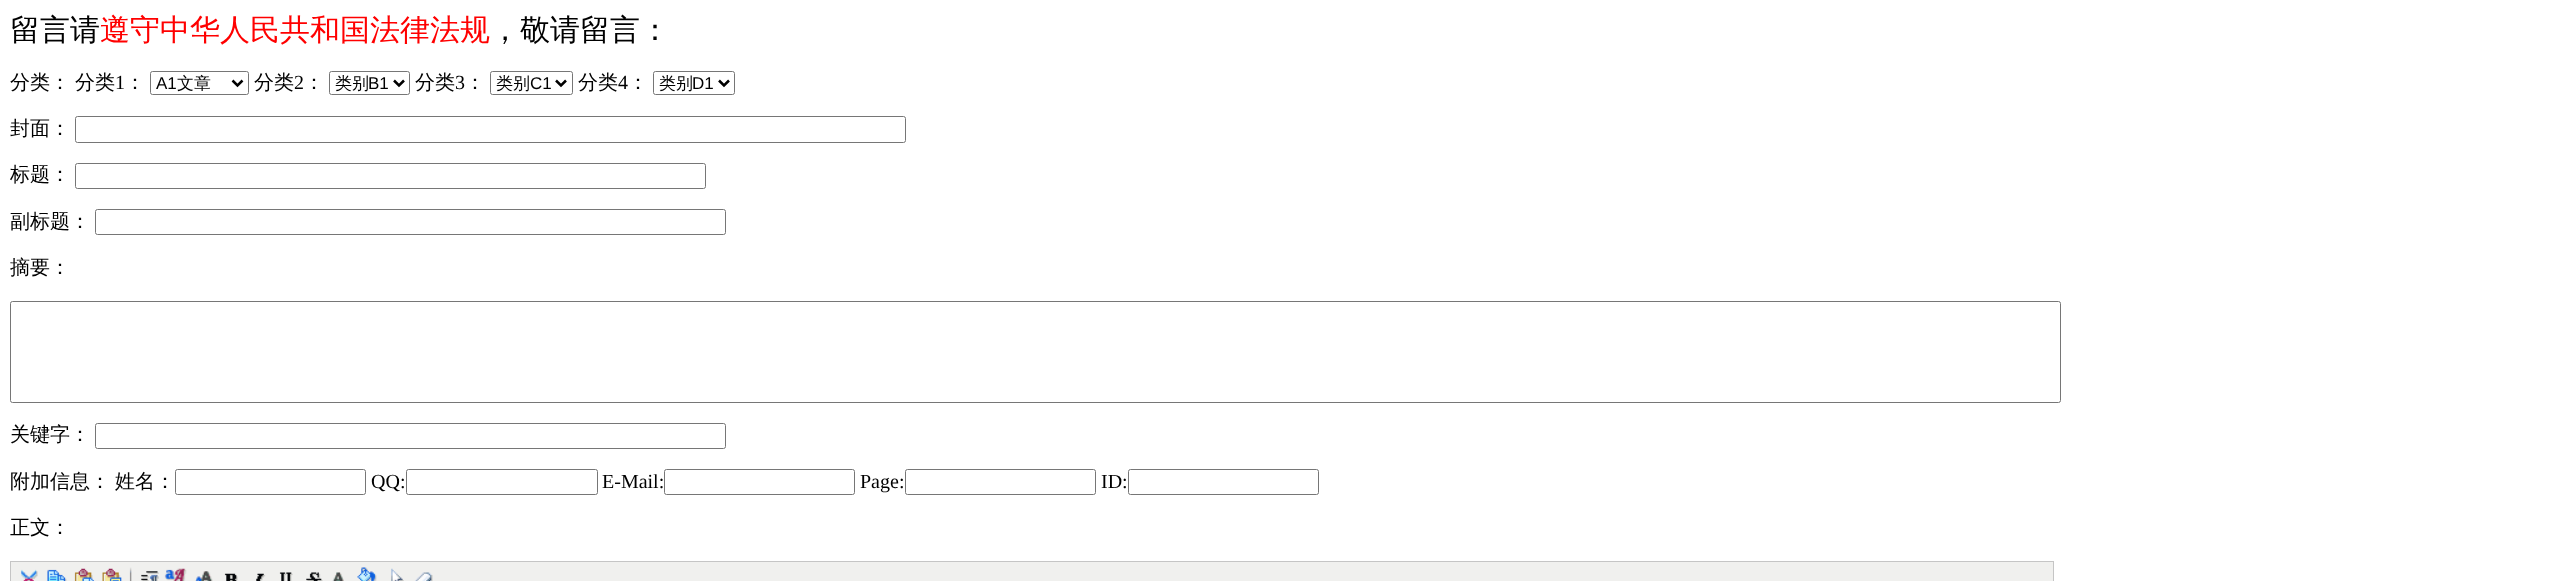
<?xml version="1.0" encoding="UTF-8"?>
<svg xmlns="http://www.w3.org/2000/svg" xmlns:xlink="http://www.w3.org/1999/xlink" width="2574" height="581">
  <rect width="100%" height="100%" fill="#ffffff" />
  <rect x="150.5" y="71.5" width="98" height="23" rx="2" fill="none" stroke="#767676" />
  <path d="M 232.5 80.5 l 5 5 l 5 -5" fill="none" stroke="#000000" stroke-width="2.5" />
  <rect x="329.5" y="71.5" width="80" height="23" rx="2" fill="none" stroke="#767676" />
  <path d="M 394 80.5 l 5 5 l 5 -5" fill="none" stroke="#000000" stroke-width="2.5" />
  <rect x="490.5" y="71.5" width="82" height="23" rx="2" fill="none" stroke="#767676" />
  <path d="M 556 80.5 l 5 5 l 5 -5" fill="none" stroke="#000000" stroke-width="2.5" />
  <rect x="653.5" y="71.5" width="81" height="23" rx="2" fill="none" stroke="#767676" />
  <path d="M 719 80.5 l 5 5 l 5 -5" fill="none" stroke="#000000" stroke-width="2.5" />
  <rect x="75.5" y="116.5" width="830" height="26" rx="2" fill="none" stroke="#767676" />
  <rect x="75.5" y="163.5" width="630" height="25" rx="2" fill="none" stroke="#767676" />
  <rect x="95.5" y="209.5" width="630" height="25" rx="2" fill="none" stroke="#767676" />
  <rect x="10.5" y="301.5" width="2050" height="101" rx="2" fill="none" stroke="#767676" />
  <rect x="95.5" y="423.5" width="630" height="25" rx="2" fill="none" stroke="#767676" />
  <rect x="175.5" y="469.5" width="190" height="25" rx="2" fill="none" stroke="#767676" />
  <rect x="406.5" y="469.5" width="191" height="25" rx="2" fill="none" stroke="#767676" />
  <rect x="664.5" y="469.5" width="190" height="25" rx="2" fill="none" stroke="#767676" />
  <rect x="905.5" y="469.5" width="190" height="25" rx="2" fill="none" stroke="#767676" />
  <rect x="1128.5" y="469.5" width="190" height="25" rx="2" fill="none" stroke="#767676" />
  <rect x="10.5" y="561.5" width="2043" height="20" fill="#f0f0ee" stroke="#c5c5c5" />
  <image x="21" y="569" width="17" height="12" xlink:href="image1.png" />
  <image x="47" y="569" width="20" height="12" xlink:href="image2.png" />
  <image x="74" y="568" width="20" height="13" xlink:href="image3.png" />
  <image x="102" y="568" width="20" height="13" xlink:href="image4.png" />
  <image x="129" y="567" width="3" height="14" xlink:href="image5.png" />
  <image x="141" y="571" width="18" height="10" xlink:href="image6.png" />
  <image x="164" y="568" width="23" height="13" xlink:href="image7.png" />
  <image x="195" y="571" width="18" height="10" xlink:href="image8.png" />
  <image x="224" y="573" width="14" height="8" xlink:href="image9.png" />
  <image x="256" y="573" width="10" height="8" xlink:href="image10.png" />
  <image x="279" y="572" width="14" height="9" xlink:href="image11.png" />
  <image x="306" y="572" width="17" height="9" xlink:href="image12.png" />
  <image x="332" y="572" width="12" height="9" xlink:href="image13.png" />
  <image x="357" y="567" width="20" height="14" xlink:href="image14.png" />
  <image x="391" y="568" width="13" height="13" xlink:href="image15.png" />
  <image x="415" y="572" width="18" height="9" xlink:href="image16.png" />
  <text x="10" y="40" style="font-family: WenQuanYi Zen Hei; font-size: 30px; font-weight: 500; fill: #000000">留言请</text>
  <text x="100" y="40" style="font-family: WenQuanYi Zen Hei; font-size: 30px; font-weight: 500; fill: #ff0000">遵守中华人民共和国法律法规</text>
  <text x="490" y="40" style="font-family: WenQuanYi Zen Hei; font-size: 30px; font-weight: 500; fill: #000000">，敬请留言：</text>
  <text x="10" y="89" style="font-family: WenQuanYi Zen Hei; font-size: 20px; font-weight: 500; fill: #000000">分类：</text>
  <text x="75" y="89" style="font-family: WenQuanYi Zen Hei; font-size: 20px; font-weight: 500; fill: #000000">分类</text>
  <text x="115" y="89" style="font-family: Liberation Serif; font-size: 20px; fill: #000000">1</text>
  <text x="125" y="89" style="font-family: WenQuanYi Zen Hei; font-size: 20px; font-weight: 500; fill: #000000">：</text>
  <text x="156" y="89" style="font-family: Liberation Sans; font-size: 17px; fill: #000000">A1</text>
  <text x="177" y="89" style="font-family: WenQuanYi Zen Hei; font-size: 17px; font-weight: 500; fill: #000000">文章</text>
  <text x="254" y="89" style="font-family: WenQuanYi Zen Hei; font-size: 20px; font-weight: 500; fill: #000000">分类</text>
  <text x="294" y="89" style="font-family: Liberation Serif; font-size: 20px; fill: #000000">2</text>
  <text x="304" y="89" style="font-family: WenQuanYi Zen Hei; font-size: 20px; font-weight: 500; fill: #000000">：</text>
  <text x="335" y="89" style="font-family: WenQuanYi Zen Hei; font-size: 17px; font-weight: 500; fill: #000000">类别</text>
  <text x="368" y="89" style="font-family: Liberation Sans; font-size: 17px; fill: #000000">B1</text>
  <text x="415" y="89" style="font-family: WenQuanYi Zen Hei; font-size: 20px; font-weight: 500; fill: #000000">分类</text>
  <text x="455" y="89" style="font-family: Liberation Serif; font-size: 20px; fill: #000000">3</text>
  <text x="465" y="89" style="font-family: WenQuanYi Zen Hei; font-size: 20px; font-weight: 500; fill: #000000">：</text>
  <text x="496" y="89" style="font-family: WenQuanYi Zen Hei; font-size: 17px; font-weight: 500; fill: #000000">类别</text>
  <text x="530" y="89" style="font-family: Liberation Sans; font-size: 17px; fill: #000000">C1</text>
  <text x="578" y="89" style="font-family: WenQuanYi Zen Hei; font-size: 20px; font-weight: 500; fill: #000000">分类</text>
  <text x="618" y="89" style="font-family: Liberation Serif; font-size: 20px; fill: #000000">4</text>
  <text x="628" y="89" style="font-family: WenQuanYi Zen Hei; font-size: 20px; font-weight: 500; fill: #000000">：</text>
  <text x="659" y="89" style="font-family: WenQuanYi Zen Hei; font-size: 17px; font-weight: 500; fill: #000000">类别</text>
  <text x="692" y="89" style="font-family: Liberation Sans; font-size: 17px; fill: #000000">D1</text>
  <text x="10" y="135" style="font-family: WenQuanYi Zen Hei; font-size: 20px; font-weight: 500; fill: #000000">封面：</text>
  <text x="10" y="181" style="font-family: WenQuanYi Zen Hei; font-size: 20px; font-weight: 500; fill: #000000">标题：</text>
  <text x="10" y="228" style="font-family: WenQuanYi Zen Hei; font-size: 20px; font-weight: 500; fill: #000000">副标题：</text>
  <text x="10" y="274" style="font-family: WenQuanYi Zen Hei; font-size: 20px; font-weight: 500; fill: #000000">摘要：</text>
  <text x="10" y="441" style="font-family: WenQuanYi Zen Hei; font-size: 20px; font-weight: 500; fill: #000000">关键字：</text>
  <text x="10" y="488" style="font-family: WenQuanYi Zen Hei; font-size: 20px; font-weight: 500; fill: #000000">附加信息：</text>
  <text x="115" y="488" style="font-family: WenQuanYi Zen Hei; font-size: 20px; font-weight: 500; fill: #000000">姓名：</text>
  <text x="371" y="488" style="font-family: Liberation Serif; font-size: 20px; fill: #000000">QQ:</text>
  <text x="602" y="488" style="font-family: Liberation Serif; font-size: 20px; fill: #000000">E-Mail:</text>
  <text x="860" y="488" style="font-family: Liberation Serif; font-size: 20px; fill: #000000">Page:</text>
  <text x="1101" y="488" style="font-family: Liberation Serif; font-size: 20px; fill: #000000">ID:</text>
  <text x="10" y="534" style="font-family: WenQuanYi Zen Hei; font-size: 20px; font-weight: 500; fill: #000000">正文：</text>
</svg>
